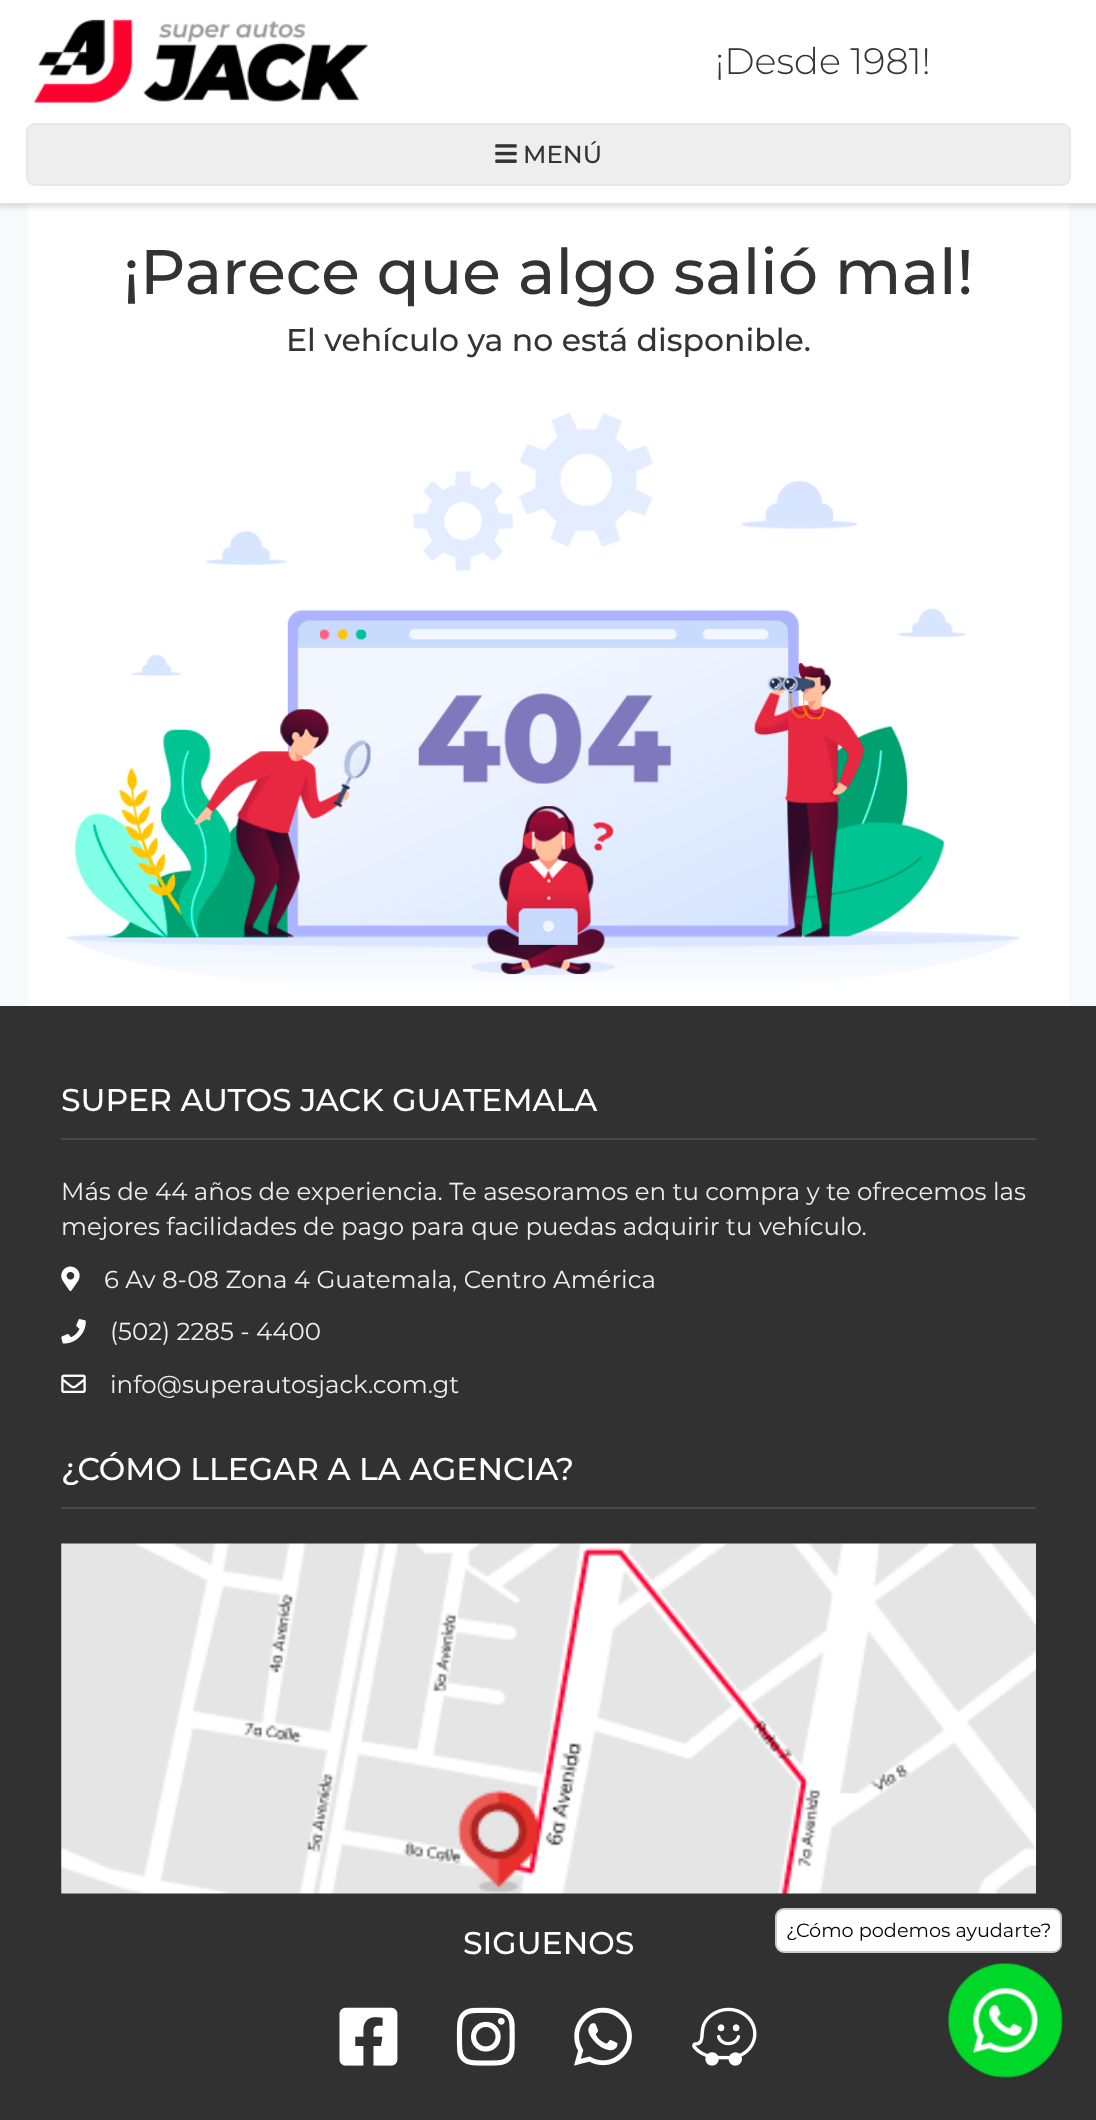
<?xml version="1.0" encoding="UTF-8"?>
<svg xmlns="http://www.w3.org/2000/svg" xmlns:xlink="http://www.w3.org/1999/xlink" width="1096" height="2120">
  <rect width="100%" height="100%" fill="#f7f9fb" />
  <rect x="28" y="203" width="1041" height="803" fill="#ffffff" />
  <rect x="-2" y="2" width="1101" height="206" fill="#000000" fill-opacity="0.1" filter="blur(2px)" />
  <rect width="1096" height="203" fill="#ffffff" />
  <image x="34" y="19" width="334" height="84" xlink:href="image1.png" />
  <rect x="27" y="124" width="1043" height="61" rx="8" fill="#eeeeee" stroke="#e8e8e8" stroke-width="2" />
  <image x="495" y="144" width="22" height="19" xlink:href="image2.png" />
  <image x="65" y="412" width="955" height="574" xlink:href="image3.png" />
  <rect y="1006" width="1096" height="1114" fill="#313131" />
  <rect x="61" y="1138" width="975" height="2" fill="#494949" />
  <image x="61" y="1266" width="19" height="25" xlink:href="image4.png" />
  <image x="61" y="1319" width="25" height="25" xlink:href="image5.png" />
  <image x="61" y="1374" width="25" height="19" xlink:href="image6.png" />
  <rect x="61" y="1507" width="975" height="2" fill="#494949" />
  <image x="61" y="1543" width="975" height="351" xlink:href="image7.png" />
  <image x="339" y="2007" width="59" height="59" xlink:href="image8.png" />
  <image x="456" y="2007" width="59" height="59" xlink:href="image9.png" />
  <image x="574" y="2007" width="58" height="59" xlink:href="image10.png" />
  <image x="692" y="2007" width="65" height="59" xlink:href="image11.png" />
  <rect x="776" y="1909" width="285" height="43" rx="8" fill="#ffffff" stroke="#cccccc" stroke-width="2" />
  <image x="948" y="1963" width="115" height="115" xlink:href="image12.png" />
  <text x="715" y="74" style="font-family: Montserrat; font-size: 36.75px; font-weight: 300; fill: #333333">¡Desde 1981!</text>
  <text x="523" y="163" style="font-family: Montserrat; font-size: 24.5px; font-weight: 500; fill: #333333">MENÚ</text>
  <text x="123" y="294" style="font-family: Montserrat; font-size: 63px; font-weight: 500; fill: #333333">¡Parece que algo salió mal!</text>
  <text x="286" y="351" style="font-family: Montserrat; font-size: 31.5px; font-weight: 500; fill: #333333">El vehículo ya no está disponible.</text>
  <text x="61" y="1111" style="font-family: Montserrat; font-size: 31.5px; font-weight: 500; fill: #ffffff">SUPER AUTOS JACK GUATEMALA</text>
  <text x="61" y="1200" style="font-family: Montserrat; font-size: 24.5px; fill: #eeeeee">Más de 44 años de experiencia. Te asesoramos en tu compra y te ofrecemos las</text>
  <text x="61" y="1235" style="font-family: Montserrat; font-size: 24.5px; fill: #eeeeee">mejores facilidades de pago para que puedas adquirir tu vehículo.</text>
  <text x="104" y="1288" style="font-family: Montserrat; font-size: 24.5px; fill: #eeeeee">6 Av 8-08 Zona 4 Guatemala, Centro América</text>
  <text x="110" y="1340" style="font-family: Montserrat; font-size: 24.5px; fill: #eeeeee">(502) 2285 - 4400</text>
  <text x="110" y="1393" style="font-family: Montserrat; font-size: 24.5px; fill: #eeeeee">info@superautosjack.com.gt</text>
  <text x="61" y="1480" style="font-family: Montserrat; font-size: 31.5px; font-weight: 500; fill: #ffffff">¿CÓMO LLEGAR A LA AGENCIA?</text>
  <text x="463" y="1954" style="font-family: Montserrat; font-size: 31.5px; font-weight: 500; fill: #ffffff">SIGUENOS</text>
  <text x="786" y="1937" style="font-family: Montserrat; font-size: 19.25px; fill: #000000">¿Cómo podemos ayudarte?</text>
</svg>
